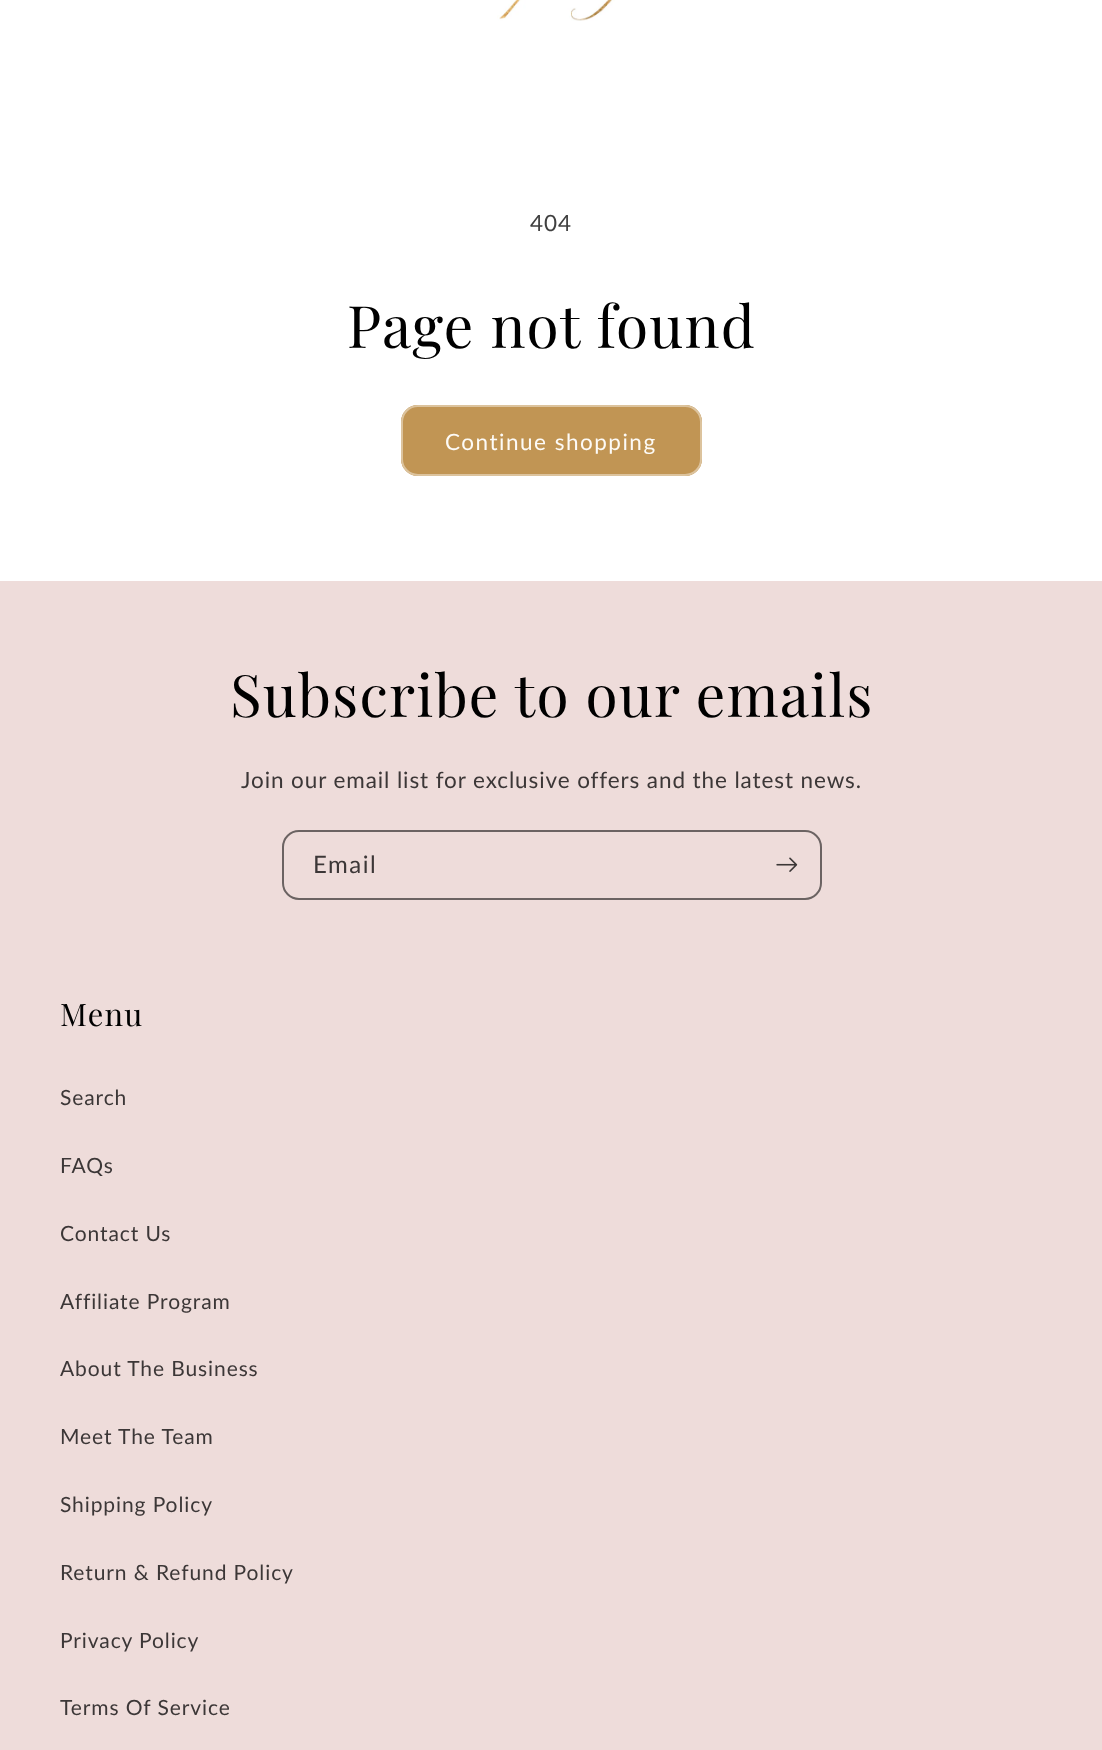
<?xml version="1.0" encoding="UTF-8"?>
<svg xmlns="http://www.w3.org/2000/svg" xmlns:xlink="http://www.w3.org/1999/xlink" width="1102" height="1750">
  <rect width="100%" height="100%" fill="#ffffff" />
  <image x="497" y="0" width="118" height="21" xlink:href="image1.png" />
  <rect x="401" y="405" width="301" height="71" rx="17" fill="#c19554" />
  <rect x="402" y="406" width="299" height="69" rx="16" fill="none" stroke="#c19554" stroke-width="2" />
  <rect x="402" y="406" width="299" height="69" rx="16" fill="none" stroke="#fdfbf7" stroke-opacity="0.45" stroke-width="2" />
  <rect y="581" width="1102" height="1169" fill="#eedcda" />
  <rect x="283" y="831" width="538" height="68" rx="16" fill="none" stroke="#6b6362" stroke-width="2" />
  <image x="776" y="857" width="22" height="15" xlink:href="image2.png" />
  <text x="530" y="231" style="font-family: Lato; font-size: 22.5px; letter-spacing: 0.9px; fill: #404040">404</text>
  <text x="347" y="348" style="font-family: Playfair Display; font-size: 58.5px; letter-spacing: 1.2px; fill: #000000">Page not found</text>
  <text x="445" y="450" style="font-family: Lato; font-size: 22.5px; letter-spacing: 1.5px; fill: #fdfbf7">Continue shopping</text>
  <text x="230" y="717" style="font-family: Playfair Display; font-size: 58.5px; letter-spacing: 1.2px; fill: #000000">Subscribe to our emails</text>
  <text x="241" y="788" style="font-family: Lato; font-size: 22.5px; letter-spacing: 0.9px; fill: #3c3737">Join our email list for exclusive offers and the latest news.</text>
  <text x="313" y="873" style="font-family: Lato; font-size: 24px; letter-spacing: 1.5px; fill: #3c3737">Email</text>
  <text x="60" y="1026" style="font-family: Playfair Display; font-size: 31px; letter-spacing: 1.2px; fill: #000000">Menu</text>
  <text x="60" y="1105" style="font-family: Lato; font-size: 21px; letter-spacing: 0.9px; fill: #3c3737">Search</text>
  <text x="60" y="1173" style="font-family: Lato; font-size: 21px; letter-spacing: 0.9px; fill: #3c3737">FAQs</text>
  <text x="60" y="1241" style="font-family: Lato; font-size: 21px; letter-spacing: 0.9px; fill: #3c3737">Contact Us</text>
  <text x="60" y="1309" style="font-family: Lato; font-size: 21px; letter-spacing: 0.9px; fill: #3c3737">Affiliate Program</text>
  <text x="60" y="1376" style="font-family: Lato; font-size: 21px; letter-spacing: 0.9px; fill: #3c3737">About The Business</text>
  <text x="60" y="1444" style="font-family: Lato; font-size: 21px; letter-spacing: 0.9px; fill: #3c3737">Meet The Team</text>
  <text x="60" y="1512" style="font-family: Lato; font-size: 21px; letter-spacing: 0.9px; fill: #3c3737">Shipping Policy</text>
  <text x="60" y="1580" style="font-family: Lato; font-size: 21px; letter-spacing: 0.9px; fill: #3c3737">Return &amp; Refund Policy</text>
  <text x="60" y="1648" style="font-family: Lato; font-size: 21px; letter-spacing: 0.9px; fill: #3c3737">Privacy Policy</text>
  <text x="60" y="1715" style="font-family: Lato; font-size: 21px; letter-spacing: 0.9px; fill: #3c3737">Terms Of Service</text>
</svg>
